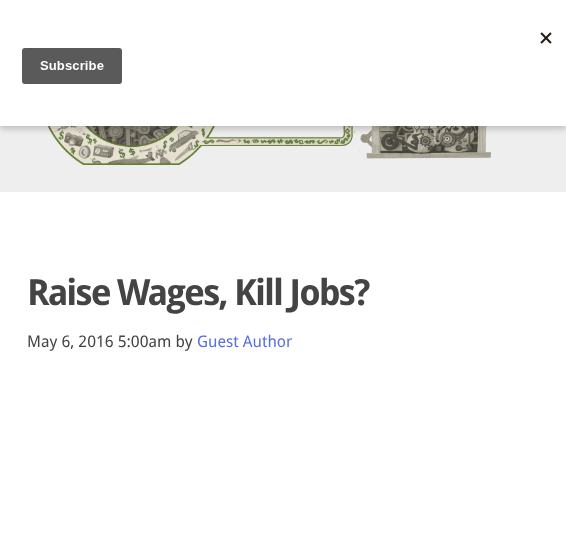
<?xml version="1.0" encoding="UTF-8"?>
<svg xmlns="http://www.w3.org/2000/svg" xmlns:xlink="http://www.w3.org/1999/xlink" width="566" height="553">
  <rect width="100%" height="100%" fill="#eeeeee" />
  <image x="47" y="126" width="445" height="39" xlink:href="image2.png" />
  <rect y="3" width="566" height="126" fill="#000000" fill-opacity="0.2" filter="blur(3px)" />
  <rect width="566" height="126" fill="#ffffff" />
  <image x="22" y="32" width="530" height="52" xlink:href="image1.png" />
  <rect y="192" width="566" height="361" fill="#ffffff" />
  <text x="27" y="305" style="font-family: Droid Sans; font-size: 36px; font-weight: bold; letter-spacing: -2px; fill: #444444">Raise Wages, Kill Jobs?</text>
  <text x="27" y="347" style="font-family: Droid Sans; font-size: 16px; fill: #444444">May 6, 2016 5:00am by</text>
  <text x="197" y="347" style="font-family: Droid Sans; font-size: 16px; fill: #586fe6">Guest Author</text>
</svg>
